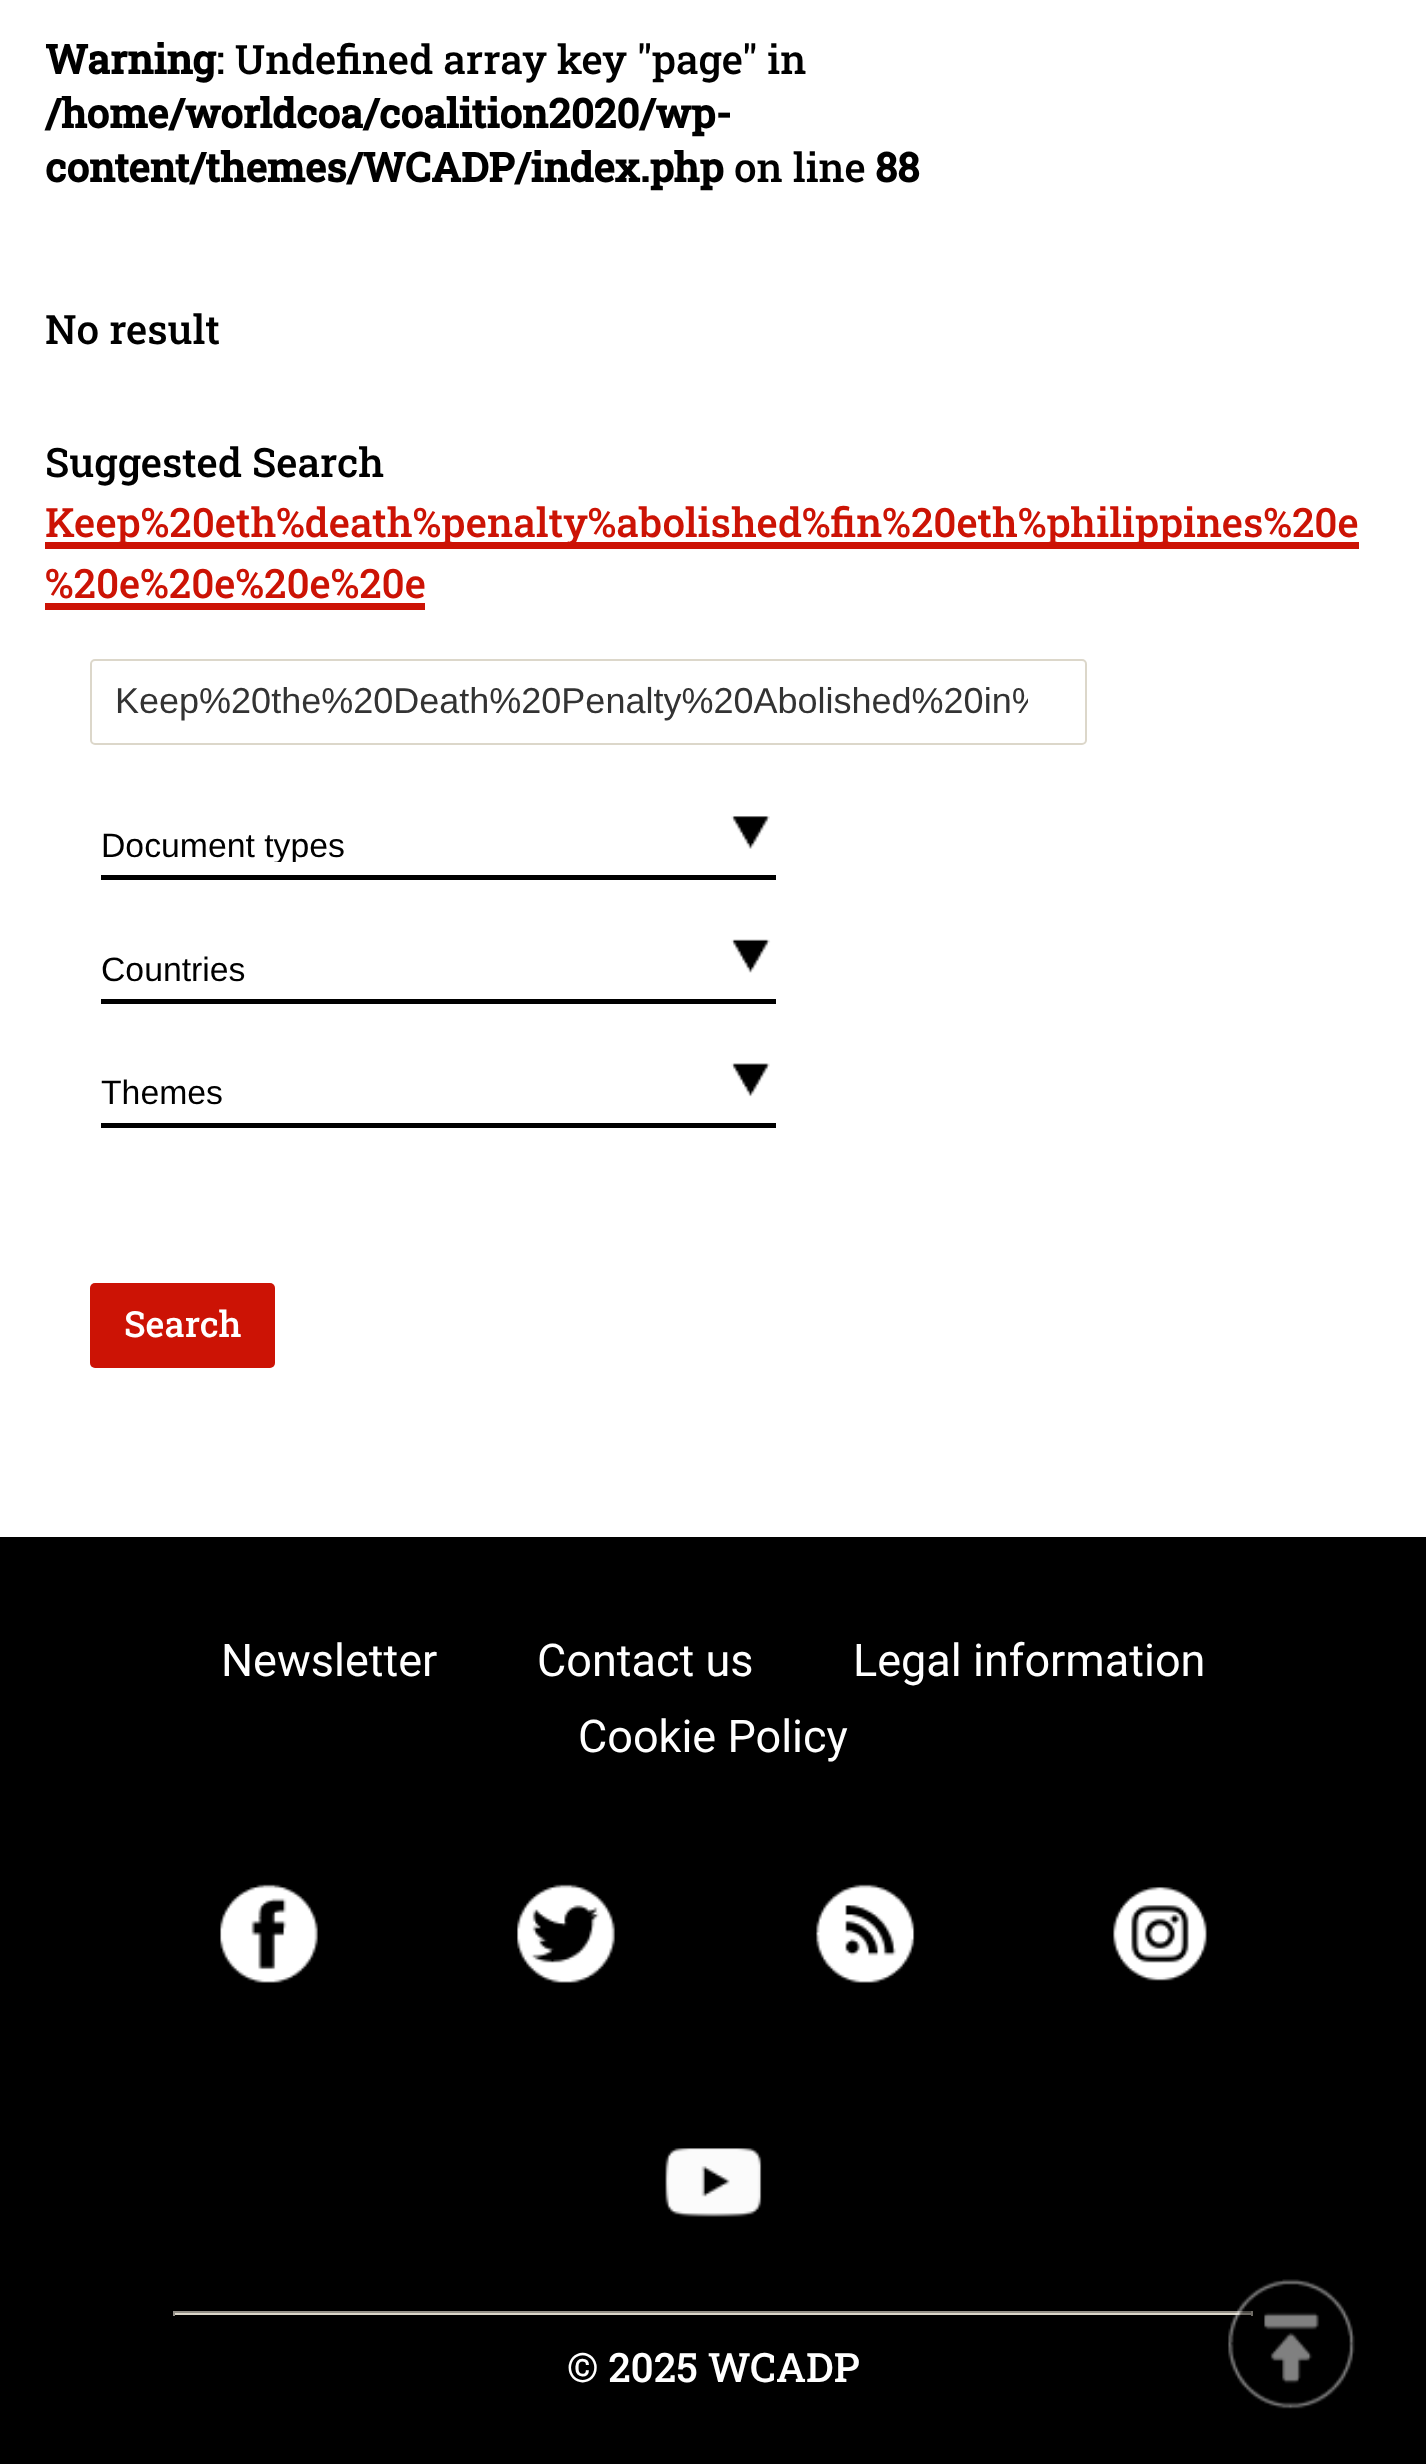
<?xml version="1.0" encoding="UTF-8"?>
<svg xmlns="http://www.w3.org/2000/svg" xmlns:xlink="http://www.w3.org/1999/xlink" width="1426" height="2464">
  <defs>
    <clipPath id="clip1"><rect x="115" y="682" width="913" height="40" /></clipPath>
    <clipPath id="clip2"><rect x="101" y="828" width="675" height="34" /></clipPath>
  </defs>
  <rect width="100%" height="100%" fill="#ffffff" />
  <rect x="45" y="542" width="1314" height="7" fill="#cc1305" />
  <rect x="45" y="603" width="380" height="7" fill="#cc1305" />
  <rect x="91" y="660" width="995" height="84" rx="4" fill="none" stroke="#dcd7ca" stroke-width="2" />
  <image x="731" y="816" width="39" height="33" xlink:href="image1.png" />
  <rect x="101" y="875" width="675" height="5" fill="#000000" />
  <image x="731" y="939" width="40" height="34" xlink:href="image2.png" />
  <rect x="101" y="999" width="675" height="5" fill="#000000" />
  <image x="731" y="1063" width="39" height="34" xlink:href="image3.png" />
  <rect x="101" y="1123" width="675" height="5" fill="#000000" />
  <rect x="90" y="1283" width="185" height="85" rx="5" fill="#cc1305" />
  <rect y="1537" width="1426" height="927" fill="#000000" />
  <image x="220" y="1884" width="98" height="99" xlink:href="image4.png" />
  <image x="517" y="1884" width="98" height="99" xlink:href="image5.png" />
  <image x="816" y="1884" width="99" height="99" xlink:href="image6.png" />
  <image x="1113" y="1887" width="94" height="94" xlink:href="image7.png" />
  <image x="665" y="2148" width="97" height="69" xlink:href="image8.png" />
  <rect x="173" y="2311" width="1080" height="2" fill="#938f87" />
  <rect x="1251" y="2311" width="2" height="5" fill="#dcd7ca" />
  <rect x="173" y="2313" width="1080" height="2" fill="#dcd7ca" />
  <rect x="173" y="2311" width="2" height="5" fill="#938f87" />
  <image x="1228" y="2279" width="127" height="130" xlink:href="image9.png" />
  <text x="45" y="74" style="font-family: Roboto Slab; font-size: 40.5px; font-weight: bold; fill: #000000">Warning</text>
  <text x="216" y="74" style="font-family: Roboto Slab; font-size: 40.5px; font-weight: 500; fill: #000000">: Undefined array key "page" in</text>
  <text x="45" y="128" style="font-family: Roboto Slab; font-size: 40.5px; font-weight: bold; fill: #000000">/home/worldcoa/coalition2020/wp-</text>
  <text x="45" y="182" style="font-family: Roboto Slab; font-size: 40.5px; font-weight: bold; fill: #000000">content/themes/WCADP/index.php</text>
  <text x="734" y="182" style="font-family: Roboto Slab; font-size: 40.5px; font-weight: 500; fill: #000000">on line</text>
  <text x="875" y="182" style="font-family: Roboto Slab; font-size: 40.5px; font-weight: bold; fill: #000000">88</text>
  <text x="45" y="344" style="font-family: Roboto Slab; font-size: 40.5px; font-weight: 500; fill: #000000">No result</text>
  <text x="45" y="477" style="font-family: Roboto Slab; font-size: 40.5px; font-weight: 500; fill: #000000">Suggested Search</text>
  <text x="45" y="537" style="font-family: Roboto Slab; font-size: 40.5px; font-weight: 500; fill: #cc1305">Keep%20eth%death%penalty%abolished%fin%20eth%philippines%20e</text>
  <text x="45" y="598" style="font-family: Roboto Slab; font-size: 40.5px; font-weight: 500; fill: #cc1305">%20e%20e%20e%20e</text>
  <g clip-path="url(#clip1)">
    <text x="115" y="713" style="font-family: Liberation Sans; font-size: 36px; fill: #333333">Keep%20the%20Death%20Penalty%20Abolished%20in%</text>
  </g>
  <g clip-path="url(#clip2)">
    <text x="101" y="857" style="font-family: Liberation Sans; font-size: 33.75px; fill: #000000">Document types</text>
  </g>
  <text x="101" y="981" style="font-family: Liberation Sans; font-size: 33.75px; fill: #000000">Countries</text>
  <text x="101" y="1104" style="font-family: Liberation Sans; font-size: 33.75px; fill: #000000">Themes</text>
  <text x="124" y="1337" style="font-family: Roboto Slab; font-size: 36px; font-weight: 500; fill: #ffffff">Search</text>
  <text x="221" y="1676" style="font-family: Roboto; font-size: 45px; fill: #ffffff">Newsletter</text>
  <text x="537" y="1676" style="font-family: Roboto; font-size: 45px; fill: #ffffff">Contact us</text>
  <text x="853" y="1676" style="font-family: Roboto; font-size: 45px; fill: #ffffff">Legal information</text>
  <text x="578" y="1752" style="font-family: Roboto; font-size: 45px; fill: #ffffff">Cookie Policy</text>
  <text x="567" y="2382" style="font-family: Roboto Slab; font-size: 40.5px; font-weight: 500; fill: #ffffff">© 2025 WCADP</text>
</svg>
